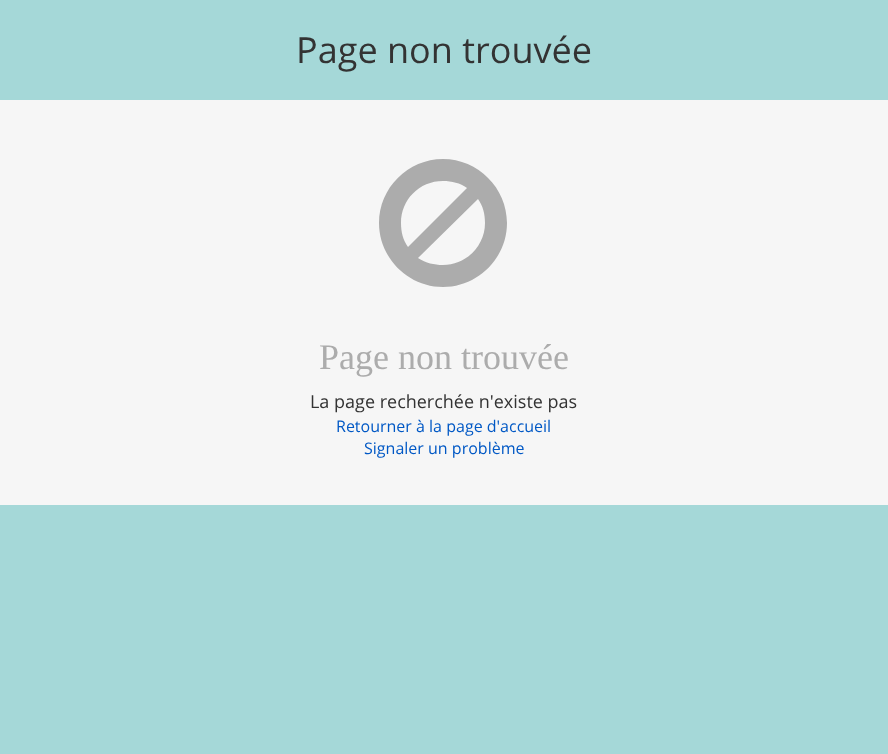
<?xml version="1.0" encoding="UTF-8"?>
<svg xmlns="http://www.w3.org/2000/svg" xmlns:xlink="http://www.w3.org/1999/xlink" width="888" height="754">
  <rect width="100%" height="100%" fill="#a5d8d8" />
  <rect y="100" width="888" height="405" fill="#f6f6f6" />
  <path d="M 443 159 c 35 0 64 29 64 64 c 0 35 -29 64 -64 64 c -35 0 -64 -29 -64 -64 c 0 -35 29 -64 64 -64 z m -42 64 c 0 9 2 17 7 24 l 59 -59 c -7 -5 -15 -7 -24 -7 c -24 0 -42 19 -42 42 z m 42 42 c 23 0 42 -19 42 -42 c 0 -9 -2 -17 -7 -24 l -60 59 c 8 5 16 7 25 7 z" fill="#acacac" />
  <text x="296" y="63" style="font-family: Open Sans; font-size: 36px; fill: #333333">Page non trouvée</text>
  <text x="319" y="369" style="font-family: Liberation Serif; font-size: 36px; fill: #acacac">Page non trouvée</text>
  <text x="310" y="408" style="font-family: Open Sans; font-size: 18px; fill: #333333">La page recherchée n'existe pas</text>
  <text x="336" y="432" style="font-family: Open Sans; font-size: 16px; fill: #0058c5">Retourner à la page d'accueil</text>
  <text x="364" y="454" style="font-family: Open Sans; font-size: 16px; fill: #0058c5">Signaler un problème</text>
</svg>
